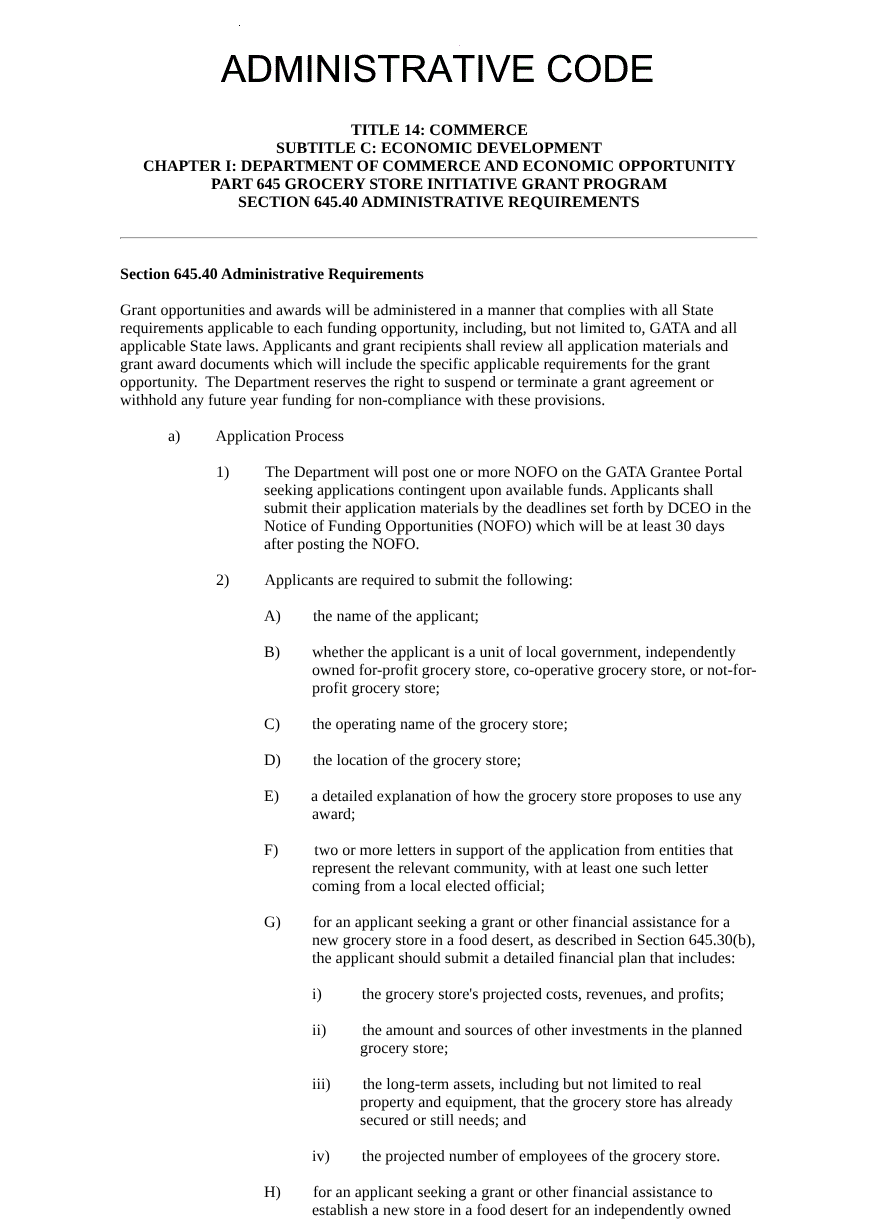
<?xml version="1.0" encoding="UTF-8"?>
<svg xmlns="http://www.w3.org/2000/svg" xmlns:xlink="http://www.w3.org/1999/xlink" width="878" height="1223">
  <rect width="100%" height="100%" fill="#ffffff" />
  <image x="221" y="25" width="432" height="58" xlink:href="image1.png" />
  <rect x="120" y="237" width="638" height="1" fill="#9f9f9f" />
  <rect x="757" y="237" width="1" height="2" fill="#eeeeee" />
  <rect x="120" y="238" width="638" height="1" fill="#eeeeee" />
  <rect x="120" y="237" width="1" height="2" fill="#9f9f9f" />
  <text x="351" y="135" style="font-family: Liberation Serif; font-size: 16px; font-weight: bold; fill: #000000">TITLE 14: COMMERCE</text>
  <text x="276" y="153" style="font-family: Liberation Serif; font-size: 16px; font-weight: bold; fill: #000000">SUBTITLE C: ECONOMIC DEVELOPMENT</text>
  <text x="143" y="171" style="font-family: Liberation Serif; font-size: 16px; font-weight: bold; fill: #000000">CHAPTER I: DEPARTMENT OF COMMERCE AND ECONOMIC OPPORTUNITY</text>
  <text x="211" y="189" style="font-family: Liberation Serif; font-size: 16px; font-weight: bold; fill: #000000">PART 645 GROCERY STORE INITIATIVE GRANT PROGRAM</text>
  <text x="238" y="207" style="font-family: Liberation Serif; font-size: 16px; font-weight: bold; fill: #000000">SECTION 645.40 ADMINISTRATIVE REQUIREMENTS</text>
  <text x="120" y="279" style="font-family: Liberation Serif; font-size: 16px; font-weight: bold; fill: #000000">Section 645.40 Administrative Requirements</text>
  <text x="120" y="315" style="font-family: Liberation Serif; font-size: 16px; fill: #000000">Grant opportunities and awards will be administered in a manner that complies with all State</text>
  <text x="120" y="333" style="font-family: Liberation Serif; font-size: 16px; fill: #000000">requirements applicable to each funding opportunity, including, but not limited to, GATA and all</text>
  <text x="120" y="351" style="font-family: Liberation Serif; font-size: 16px; fill: #000000">applicable State laws. Applicants and grant recipients shall review all application materials and</text>
  <text x="120" y="369" style="font-family: Liberation Serif; font-size: 16px; fill: #000000">grant award documents which will include the specific applicable requirements for the grant</text>
  <text x="120" y="387" style="font-family: Liberation Serif; font-size: 16px; fill: #000000" xml:space="preserve">opportunity.  The Department reserves the right to suspend or terminate a grant agreement or</text>
  <text x="120" y="405" style="font-family: Liberation Serif; font-size: 16px; fill: #000000">withhold any future year funding for non-compliance with these provisions.</text>
  <text x="168" y="441" style="font-family: Liberation Serif; font-size: 16px; fill: #000000" xml:space="preserve">a)         Application Process</text>
  <text x="216" y="477" style="font-family: Liberation Serif; font-size: 16px; fill: #000000" xml:space="preserve">1)         The Department will post one or more NOFO on the GATA Grantee Portal</text>
  <text x="264" y="495" style="font-family: Liberation Serif; font-size: 16px; fill: #000000">seeking applications contingent upon available funds.</text>
  <text x="610" y="495" style="font-family: Liberation Serif; font-size: 16px; fill: #000000">Applicants shall</text>
  <text x="264" y="513" style="font-family: Liberation Serif; font-size: 16px; fill: #000000">submit their application materials by the deadlines set forth by DCEO in the</text>
  <text x="264" y="531" style="font-family: Liberation Serif; font-size: 16px; fill: #000000">Notice of Funding Opportunities (NOFO) which will be at least 30 days</text>
  <text x="264" y="549" style="font-family: Liberation Serif; font-size: 16px; fill: #000000">after posting the NOFO.</text>
  <text x="216" y="585" style="font-family: Liberation Serif; font-size: 16px; fill: #000000" xml:space="preserve">2)         Applicants are required to submit the following:</text>
  <text x="264" y="621" style="font-family: Liberation Serif; font-size: 16px; fill: #000000" xml:space="preserve">A)        the name of the applicant;</text>
  <text x="264" y="657" style="font-family: Liberation Serif; font-size: 16px; fill: #000000" xml:space="preserve">B)        whether the applicant is a unit of local government, independently</text>
  <text x="312" y="675" style="font-family: Liberation Serif; font-size: 16px; fill: #000000">owned for-profit grocery store, co-operative grocery store, or not-for-</text>
  <text x="312" y="693" style="font-family: Liberation Serif; font-size: 16px; fill: #000000">profit grocery store;</text>
  <text x="264" y="729" style="font-family: Liberation Serif; font-size: 16px; fill: #000000" xml:space="preserve">C)        the operating name of the grocery store;</text>
  <text x="264" y="765" style="font-family: Liberation Serif; font-size: 16px; fill: #000000" xml:space="preserve">D)        the location of the grocery store;</text>
  <text x="264" y="801" style="font-family: Liberation Serif; font-size: 16px; fill: #000000" xml:space="preserve">E)        a detailed explanation of how the grocery store proposes to use any</text>
  <text x="312" y="819" style="font-family: Liberation Serif; font-size: 16px; fill: #000000">award;</text>
  <text x="264" y="855" style="font-family: Liberation Serif; font-size: 16px; fill: #000000" xml:space="preserve">F)         two or more letters in support of the application from entities that</text>
  <text x="312" y="873" style="font-family: Liberation Serif; font-size: 16px; fill: #000000">represent the relevant community, with at least one such letter</text>
  <text x="312" y="891" style="font-family: Liberation Serif; font-size: 16px; fill: #000000">coming from a local elected official;</text>
  <text x="264" y="927" style="font-family: Liberation Serif; font-size: 16px; fill: #000000" xml:space="preserve">G)        for an applicant seeking a grant or other financial assistance for a</text>
  <text x="312" y="945" style="font-family: Liberation Serif; font-size: 16px; fill: #000000">new grocery store in a food desert, as described in Section 645.30(b),</text>
  <text x="312" y="963" style="font-family: Liberation Serif; font-size: 16px; fill: #000000">the applicant should submit a detailed financial plan that includes:</text>
  <text x="312" y="999" style="font-family: Liberation Serif; font-size: 16px; fill: #000000" xml:space="preserve">i)          the grocery store's projected costs, revenues, and profits;</text>
  <text x="312" y="1035" style="font-family: Liberation Serif; font-size: 16px; fill: #000000" xml:space="preserve">ii)         the amount and sources of other investments in the planned</text>
  <text x="360" y="1053" style="font-family: Liberation Serif; font-size: 16px; fill: #000000">grocery store;</text>
  <text x="312" y="1089" style="font-family: Liberation Serif; font-size: 16px; fill: #000000" xml:space="preserve">iii)        the long-term assets, including but not limited to real</text>
  <text x="360" y="1107" style="font-family: Liberation Serif; font-size: 16px; fill: #000000">property and equipment, that the grocery store has already</text>
  <text x="360" y="1125" style="font-family: Liberation Serif; font-size: 16px; fill: #000000">secured or still needs; and</text>
  <text x="312" y="1161" style="font-family: Liberation Serif; font-size: 16px; fill: #000000" xml:space="preserve">iv)        the projected number of employees of the grocery store.</text>
  <text x="264" y="1197" style="font-family: Liberation Serif; font-size: 16px; fill: #000000" xml:space="preserve">H)        for an applicant seeking a grant or other financial assistance to</text>
  <text x="312" y="1215" style="font-family: Liberation Serif; font-size: 16px; fill: #000000">establish a new store in a food desert for an independently owned</text>
</svg>
